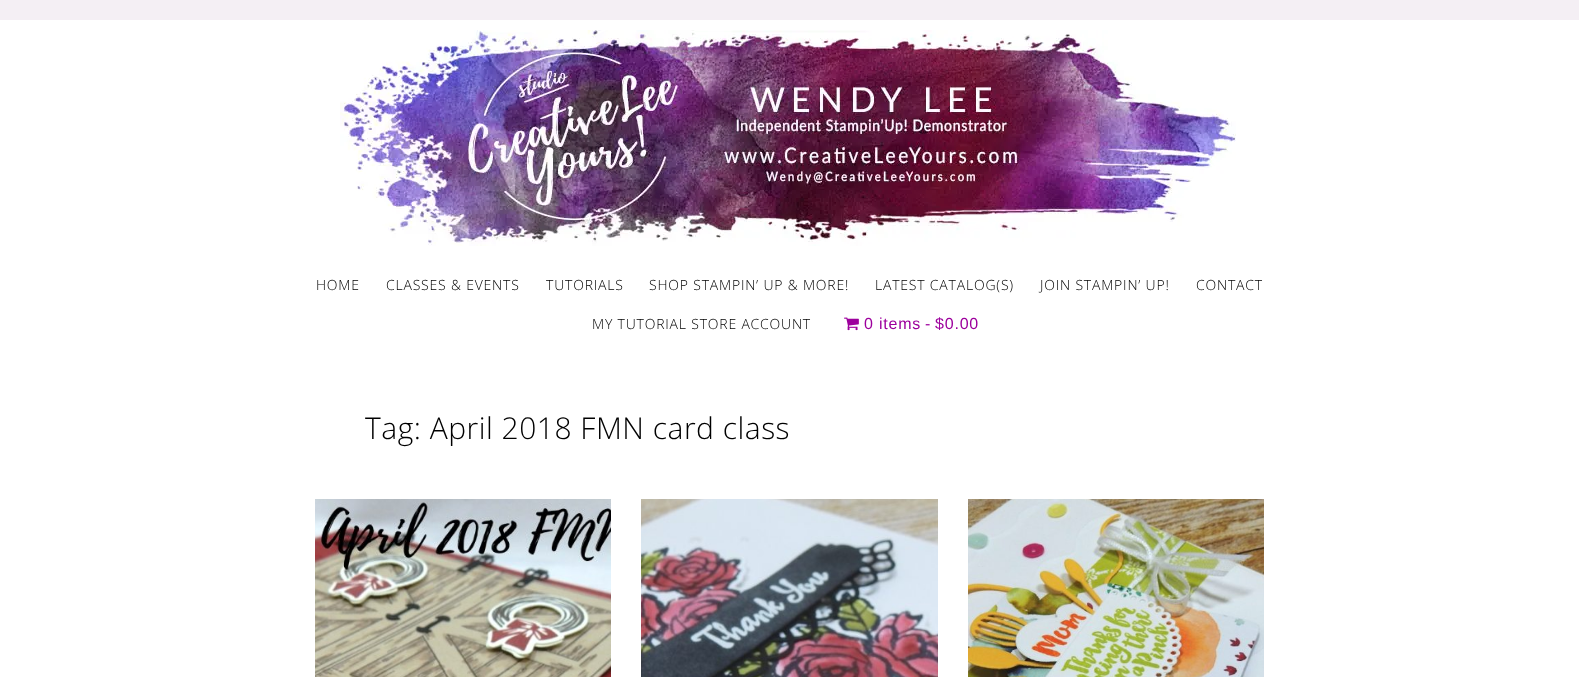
<?xml version="1.0" encoding="UTF-8"?>
<svg xmlns="http://www.w3.org/2000/svg" xmlns:xlink="http://www.w3.org/1999/xlink" width="1579" height="677">
  <rect width="100%" height="100%" fill="#ffffff" />
  <rect width="1579" height="20" fill="#f4eff4" />
  <image x="340" y="30" width="896" height="216" xlink:href="image1.png" />
  <image x="844" y="317" width="15" height="14" xlink:href="image2.png" />
  <image x="315" y="499" width="296" height="178" xlink:href="image3.png" />
  <image x="641" y="499" width="297" height="178" xlink:href="image4.png" />
  <image x="968" y="499" width="296" height="178" xlink:href="image5.png" />
  <text x="316" y="290" style="font-family: Open Sans; font-size: 14px; font-weight: 300; letter-spacing: 0.8px; fill: #000000">HOME</text>
  <text x="386" y="290" style="font-family: Open Sans; font-size: 14px; font-weight: 300; letter-spacing: 0.8px; fill: #000000">CLASSES &amp; EVENTS</text>
  <text x="546" y="290" style="font-family: Open Sans; font-size: 14px; font-weight: 300; letter-spacing: 0.8px; fill: #000000">TUTORIALS</text>
  <text x="649" y="290" style="font-family: Open Sans; font-size: 14px; font-weight: 300; letter-spacing: 0.8px; fill: #000000">SHOP STAMPIN’ UP &amp; MORE!</text>
  <text x="875" y="290" style="font-family: Open Sans; font-size: 14px; font-weight: 300; letter-spacing: 0.8px; fill: #000000">LATEST CATALOG(S)</text>
  <text x="1040" y="290" style="font-family: Open Sans; font-size: 14px; font-weight: 300; letter-spacing: 0.8px; fill: #000000">JOIN STAMPIN’ UP!</text>
  <text x="1196" y="290" style="font-family: Open Sans; font-size: 14px; font-weight: 300; letter-spacing: 0.8px; fill: #000000">CONTACT</text>
  <text x="592" y="329" style="font-family: Open Sans; font-size: 14px; font-weight: 300; letter-spacing: 0.8px; fill: #000000">MY TUTORIAL STORE ACCOUNT</text>
  <text x="864" y="329" style="font-family: Liberation Sans; font-size: 16px; letter-spacing: 0.8px; fill: #9d009d">0 items</text>
  <text x="925" y="329" style="font-family: Liberation Sans; font-size: 16px; letter-spacing: 0.8px; fill: #9d009d">-</text>
  <text x="935" y="329" style="font-family: Liberation Sans; font-size: 16px; letter-spacing: 0.8px; fill: #9d009d">$0.00</text>
  <text x="365" y="439" style="font-family: Open Sans; font-size: 30px; font-weight: 300; letter-spacing: 0.5px; fill: #000000">Tag: April 2018 FMN card class</text>
</svg>
